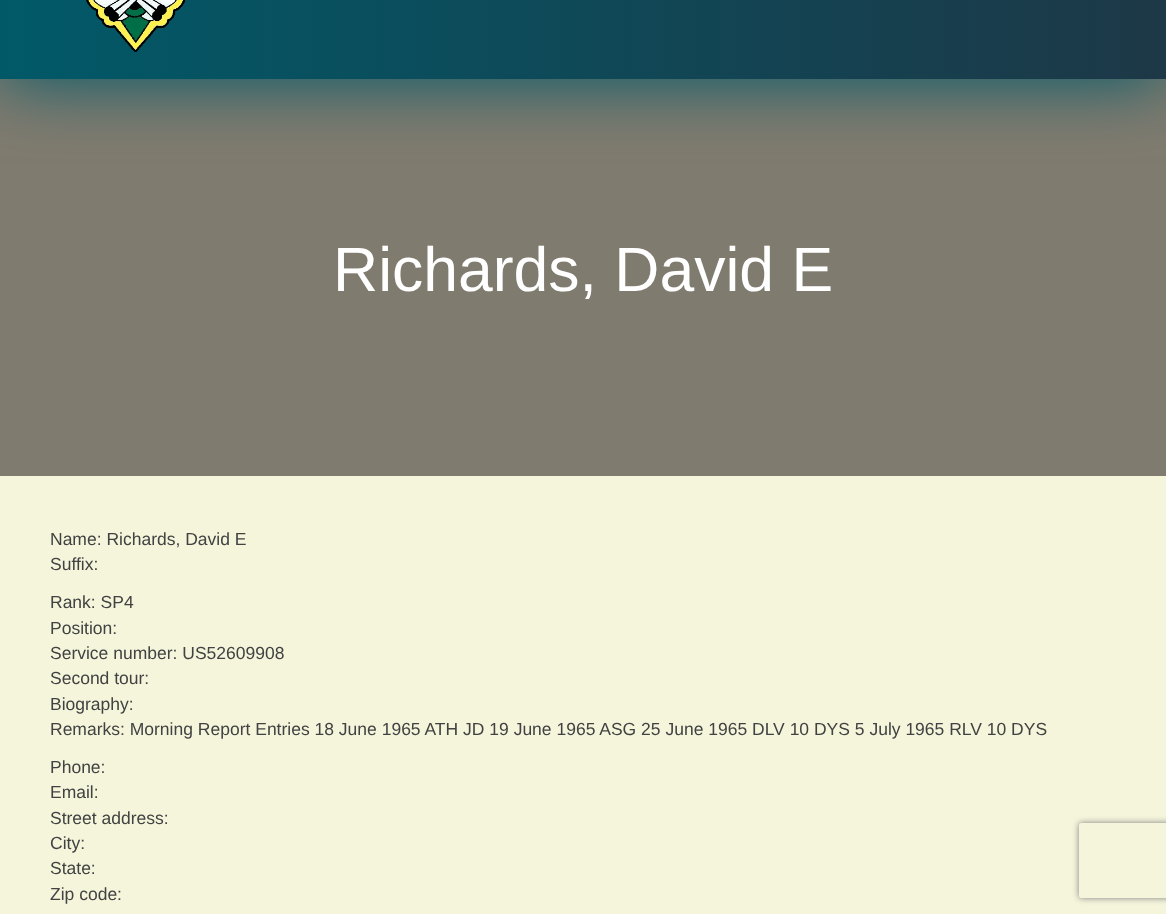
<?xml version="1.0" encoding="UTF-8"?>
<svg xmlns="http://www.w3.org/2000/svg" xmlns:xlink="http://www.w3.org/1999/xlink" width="1166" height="914">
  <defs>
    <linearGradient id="g1" gradientUnits="userSpaceOnUse" x1="0" y1="-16" x2="1166" y2="-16"><stop offset="0" stop-color="#015968" /><stop offset="1" stop-color="#1d3847" /></linearGradient>
    <clipPath id="clip1"><path d="M 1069 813 h 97 v 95 h -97 z m 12.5 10 h 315 c 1.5 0 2.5 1 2.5 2.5 v 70 c 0 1.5 -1 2.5 -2.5 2.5 h -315 c -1.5 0 -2.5 -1 -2.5 -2.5 v -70 c 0 -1.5 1 -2.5 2.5 -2.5 z" clip-rule="evenodd" /></clipPath>
  </defs>
  <rect width="100%" height="100%" fill="#f5f5dc" />
  <rect y="79" width="1166" height="397" fill="#807b6f" />
  <rect y="-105" width="1166" height="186" fill="#015968" filter="blur(35px)" />
  <rect width="1166" height="79" fill="url(#g1)" />
  <image x="86" y="0" width="100" height="52" xlink:href="image1.png" />
  <g clip-path="url(#clip1)">
    <rect x="1079" y="823" width="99" height="75" rx="2.5" fill="#808080" filter="blur(3px)" />
  </g>
  <text x="333" y="291" style="font-family: Liberation Sans; font-size: 62.5px; fill: #ffffff">Richards, David E</text>
  <text x="50" y="545" style="font-family: Liberation Sans; font-size: 17.5px; fill: #424242">Name: Richards, David E</text>
  <text x="50" y="570" style="font-family: Liberation Sans; font-size: 17.5px; fill: #424242">Suffix:</text>
  <text x="50" y="608" style="font-family: Liberation Sans; font-size: 17.5px; fill: #424242">Rank: SP4</text>
  <text x="50" y="634" style="font-family: Liberation Sans; font-size: 17.5px; fill: #424242">Position:</text>
  <text x="50" y="659" style="font-family: Liberation Sans; font-size: 17.5px; fill: #424242">Service number: US52609908</text>
  <text x="50" y="684" style="font-family: Liberation Sans; font-size: 17.5px; fill: #424242">Second tour:</text>
  <text x="50" y="710" style="font-family: Liberation Sans; font-size: 17.5px; fill: #424242">Biography:</text>
  <text x="50" y="735" style="font-family: Liberation Sans; font-size: 17.5px; fill: #424242">Remarks: Morning Report Entries 18 June 1965 ATH JD 19 June 1965 ASG 25 June 1965 DLV 10 DYS 5 July 1965 RLV 10 DYS</text>
  <text x="50" y="773" style="font-family: Liberation Sans; font-size: 17.5px; fill: #424242">Phone:</text>
  <text x="50" y="798" style="font-family: Liberation Sans; font-size: 17.5px; fill: #424242">Email:</text>
  <text x="50" y="824" style="font-family: Liberation Sans; font-size: 17.5px; fill: #424242">Street address:</text>
  <text x="50" y="849" style="font-family: Liberation Sans; font-size: 17.5px; fill: #424242">City:</text>
  <text x="50" y="874" style="font-family: Liberation Sans; font-size: 17.5px; fill: #424242">State:</text>
  <text x="50" y="900" style="font-family: Liberation Sans; font-size: 17.5px; fill: #424242">Zip code:</text>
</svg>
